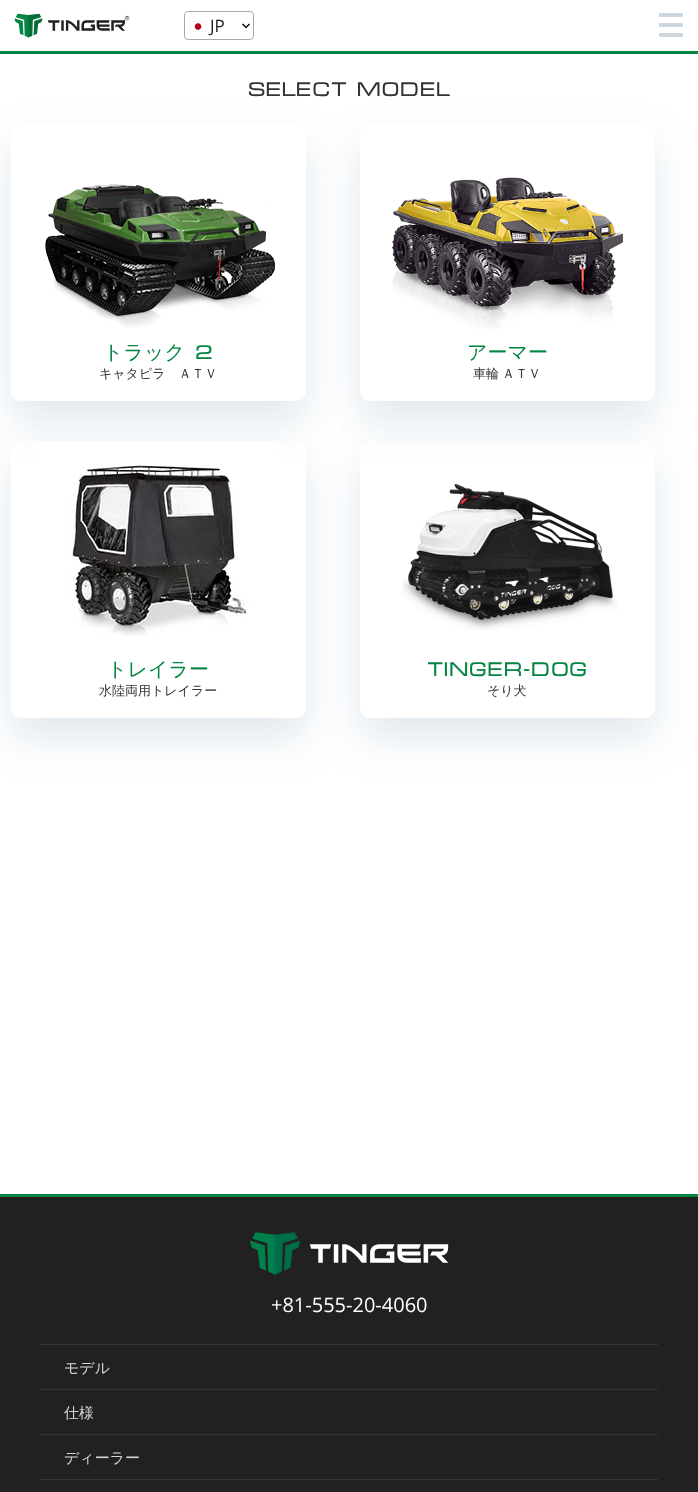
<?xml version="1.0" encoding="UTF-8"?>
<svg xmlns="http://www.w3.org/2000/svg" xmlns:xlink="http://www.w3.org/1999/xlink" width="698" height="1492">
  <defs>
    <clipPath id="clip1"><path d="M 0 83 h 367 v 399 h -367 z m 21 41 h 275 c 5.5 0 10 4.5 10 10 v 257 c 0 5.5 -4.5 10 -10 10 h -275 c -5.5 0 -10 -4.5 -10 -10 v -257 c 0 -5.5 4.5 -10 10 -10 z" clip-rule="evenodd" /></clipPath>
    <clipPath id="clip2"><path d="M 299 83 h 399 v 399 h -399 z m 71 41 h 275 c 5.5 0 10 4.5 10 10 v 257 c 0 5.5 -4.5 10 -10 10 h -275 c -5.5 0 -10 -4.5 -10 -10 v -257 c 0 -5.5 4.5 -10 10 -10 z" clip-rule="evenodd" /></clipPath>
    <clipPath id="clip3"><path d="M 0 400 h 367 v 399 h -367 z m 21 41 h 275 c 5.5 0 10 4.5 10 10 v 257 c 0 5.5 -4.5 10 -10 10 h -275 c -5.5 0 -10 -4.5 -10 -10 v -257 c 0 -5.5 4.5 -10 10 -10 z" clip-rule="evenodd" /></clipPath>
    <clipPath id="clip4"><path d="M 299 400 h 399 v 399 h -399 z m 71 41 h 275 c 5.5 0 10 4.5 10 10 v 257 c 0 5.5 -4.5 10 -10 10 h -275 c -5.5 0 -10 -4.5 -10 -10 v -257 c 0 -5.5 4.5 -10 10 -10 z" clip-rule="evenodd" /></clipPath>
  </defs>
  <rect width="100%" height="100%" fill="#ffffff" />
  <image x="14" y="13" width="116" height="25" xlink:href="image1.png" />
  <image x="190" y="21" width="16" height="11" xlink:href="image2.png" />
  <rect x="184.5" y="11.5" width="69" height="28" rx="3.5" fill="none" stroke="#a9a9a9" />
  <image x="242" y="23" width="8" height="6" xlink:href="image3.png" />
  <rect x="659" y="13" width="24" height="4" rx="1" fill="#cdd5de" />
  <rect x="659" y="23" width="24" height="4" rx="1" fill="#cdd5de" />
  <rect x="659" y="33" width="24" height="4" rx="1" fill="#cdd5de" />
  <rect y="51" width="698" height="3" fill="#038542" />
  <g clip-path="url(#clip1)">
    <rect x="11" y="144" width="295" height="277" rx="10" fill="#8ea9c2" fill-opacity="0.27" filter="blur(20px)" />
  </g>
  <image x="45" y="184" width="230" height="144" xlink:href="image4.png" />
  <g clip-path="url(#clip2)">
    <rect x="360" y="144" width="295" height="277" rx="10" fill="#8ea9c2" fill-opacity="0.27" filter="blur(20px)" />
  </g>
  <image x="392" y="177" width="231" height="152" xlink:href="image5.png" />
  <g clip-path="url(#clip3)">
    <rect x="11" y="461" width="295" height="277" rx="10" fill="#8ea9c2" fill-opacity="0.27" filter="blur(20px)" />
  </g>
  <image x="38" y="441" width="240" height="195" xlink:href="image6.png" />
  <g clip-path="url(#clip4)">
    <rect x="360" y="461" width="295" height="277" rx="10" fill="#8ea9c2" fill-opacity="0.27" filter="blur(20px)" />
  </g>
  <image x="402" y="484" width="215" height="146" xlink:href="image7.png" />
  <rect y="1194" width="698" height="3" fill="#038542" />
  <rect y="1197" width="698" height="295" fill="#212121" />
  <image x="249" y="1232" width="200" height="43" xlink:href="image8.png" />
  <rect x="40" y="1344" width="618" height="1" fill="#353535" />
  <rect x="40" y="1389" width="618" height="1" fill="#353535" />
  <rect x="40" y="1434" width="618" height="1" fill="#353535" />
  <rect x="40" y="1479" width="618" height="1" fill="#353535" />
  <text x="210" y="32" style="font-family: Open Sans; font-size: 17px; fill: #212121">JP</text>
  <text x="248" y="96" style="font-family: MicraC; font-size: 20px; fill: #333333">Select Model</text>
  <text x="103" y="359" style="font-family: WenQuanYi Zen Hei; font-size: 20px; font-weight: 500; fill: #038542">トラック</text>
  <text x="195" y="359" style="font-family: MicraC; font-size: 20px; fill: #038542">2</text>
  <text x="99" y="378" style="font-family: WenQuanYi Zen Hei; font-size: 13px; font-weight: 500; fill: #333333">キャタピラ　ＡＴＶ</text>
  <text x="467" y="359" style="font-family: WenQuanYi Zen Hei; font-size: 20px; font-weight: 500; fill: #038542">アーマー</text>
  <text x="473" y="378" word-spacing="-1" style="font-family: WenQuanYi Zen Hei; font-size: 13px; font-weight: 500; fill: #333333">車輪 ＡＴＶ</text>
  <text x="107" y="676" style="font-family: WenQuanYi Zen Hei; font-size: 20px; font-weight: 500; fill: #038542">トレイラー</text>
  <text x="99" y="695" style="font-family: WenQuanYi Zen Hei; font-size: 13px; font-weight: 500; fill: #333333">水陸両用トレイラー</text>
  <text x="427" y="676" style="font-family: MicraC; font-size: 20px; fill: #038542">Tinger-Dog</text>
  <text x="487" y="695" style="font-family: WenQuanYi Zen Hei; font-size: 13px; font-weight: 500; fill: #333333">そり犬</text>
  <text x="271" y="1312" style="font-family: Open Sans; font-size: 20px; fill: #ffffff">+81-555-20-4060</text>
  <text x="64" y="1373" style="font-family: WenQuanYi Zen Hei; font-size: 15px; font-weight: 500; fill: #d7d7d7">モデル</text>
  <text x="64" y="1418" style="font-family: WenQuanYi Zen Hei; font-size: 15px; font-weight: 500; fill: #d7d7d7">仕様</text>
  <text x="64" y="1463" style="font-family: WenQuanYi Zen Hei; font-size: 15px; font-weight: 500; fill: #d7d7d7">ディーラー</text>
</svg>
